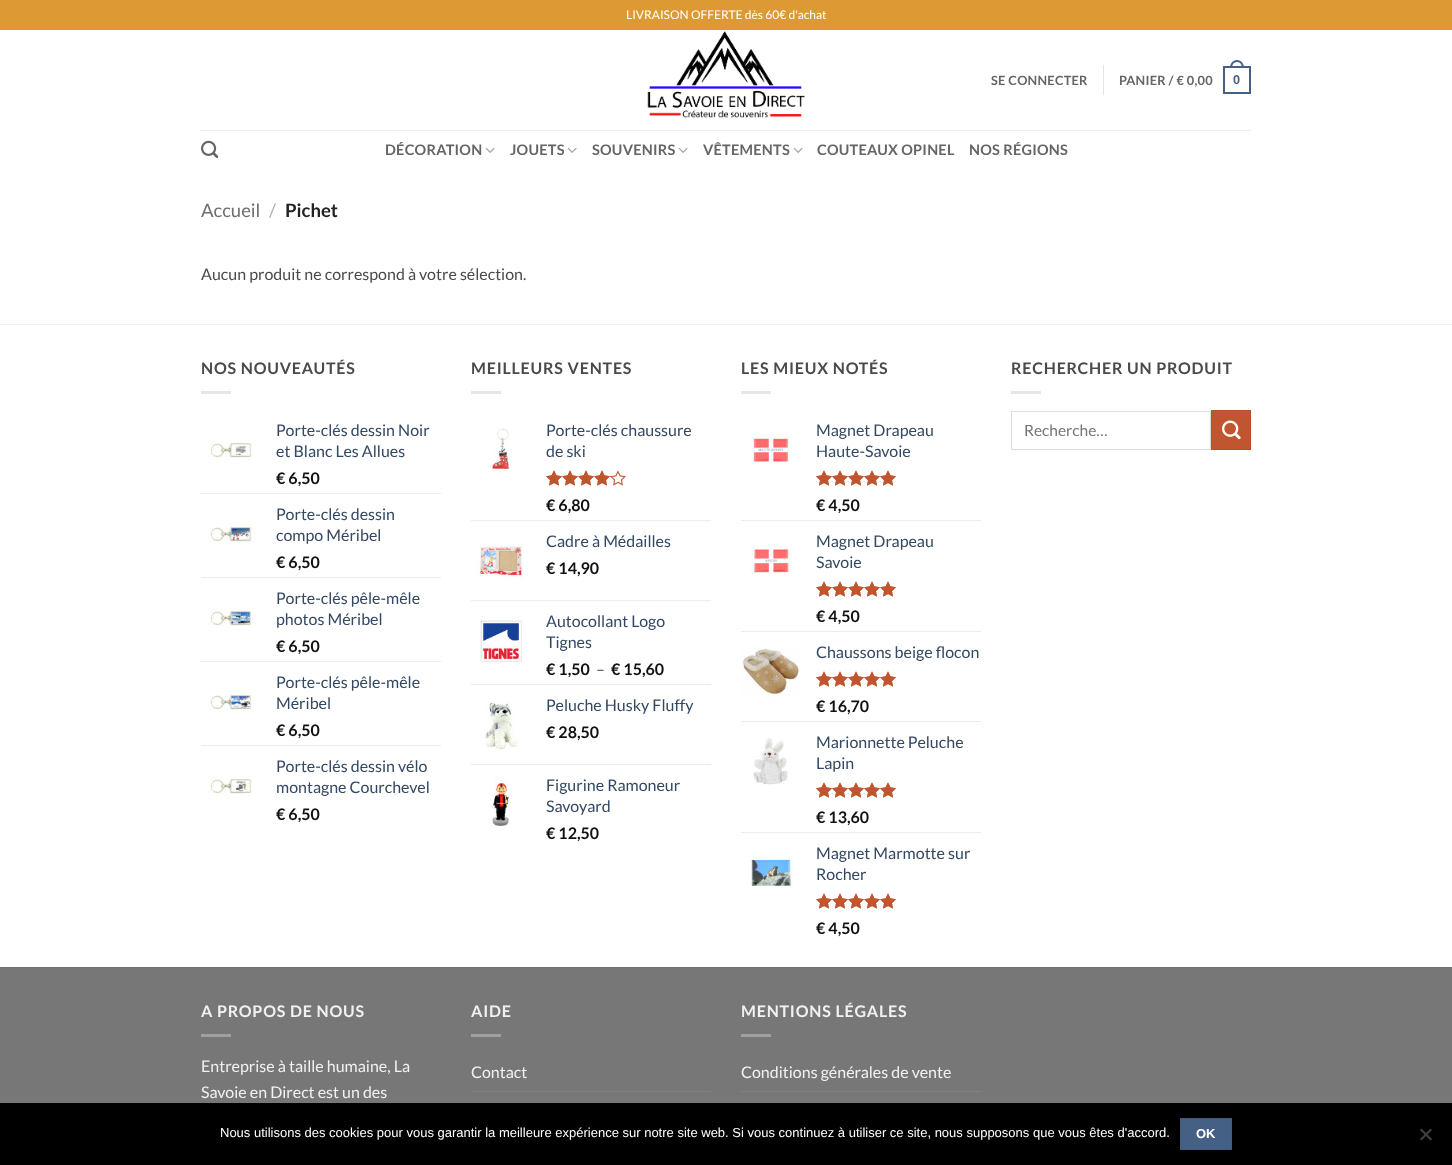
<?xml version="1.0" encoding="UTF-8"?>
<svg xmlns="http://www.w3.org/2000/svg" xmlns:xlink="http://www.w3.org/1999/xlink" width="1452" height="1165">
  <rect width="100%" height="100%" fill="#ffffff" />
  <rect width="1452" height="30" fill="#dd9933" />
  <image x="647" y="31" width="158" height="87" xlink:href="image1.png" />
  <rect x="1103" y="65" width="1" height="30" fill="#e6e6e6" />
  <rect x="1224" y="67" width="26" height="26" fill="none" stroke="#446084" stroke-width="2" />
  <path d="M 1237 60 c 4.5 0 7 4 7 8 h -14 c 0 -4 2.5 -8 7 -8 z m 0 2 c 3.5 0 5 3 5 6 h -10 c 0 -3 1.5 -6 5 -6 z" fill="#446084" fill-rule="evenodd" />
  <rect x="201" y="130" width="1050" height="1" fill="#ededed" />
  <image x="201" y="140" width="18" height="18" xlink:href="image2.png" />
  <image x="485" y="147" width="10" height="6" xlink:href="image3.png" />
  <image x="567" y="147" width="10" height="6" xlink:href="image3.png" />
  <image x="678" y="147" width="10" height="6" xlink:href="image3.png" />
  <image x="793" y="147" width="10" height="6" xlink:href="image3.png" />
  <rect y="324" width="1452" height="1" fill="#f2f2f2" />
  <rect x="201" y="391" width="30" height="3" fill="#e6e6e6" />
  <image x="210" y="439" width="44" height="19" xlink:href="image4.png" />
  <rect x="201" y="493" width="240" height="1" fill="#ececec" />
  <image x="210" y="523" width="44" height="19" xlink:href="image5.png" />
  <rect x="201" y="577" width="240" height="1" fill="#ececec" />
  <image x="210" y="607" width="44" height="19" xlink:href="image6.png" />
  <rect x="201" y="661" width="240" height="1" fill="#ececec" />
  <image x="210" y="691" width="44" height="19" xlink:href="image7.png" />
  <rect x="201" y="745" width="240" height="1" fill="#ececec" />
  <image x="210" y="775" width="44" height="19" xlink:href="image8.png" />
  <rect x="471" y="391" width="30" height="3" fill="#e6e6e6" />
  <image x="490" y="428" width="20" height="45" xlink:href="image9.png" />
  <image x="546" y="470" width="80" height="16" xlink:href="image10.png" />
  <image x="546" y="470" width="65" height="16" xlink:href="image11.png" />
  <rect x="471" y="520" width="240" height="1" fill="#ececec" />
  <image x="476" y="545" width="48" height="34" xlink:href="image12.png" />
  <rect x="471" y="600" width="240" height="1" fill="#ececec" />
  <image x="480" y="620" width="44" height="42" xlink:href="image13.png" />
  <rect x="471" y="684" width="240" height="1" fill="#ececec" />
  <image x="484" y="701" width="35" height="49" xlink:href="image14.png" />
  <rect x="471" y="764" width="240" height="1" fill="#ececec" />
  <image x="490" y="780" width="20" height="48" xlink:href="image15.png" />
  <rect x="741" y="391" width="30" height="3" fill="#e6e6e6" />
  <image x="750" y="434" width="39" height="29" xlink:href="image16.png" />
  <image x="816" y="470" width="80" height="16" xlink:href="image10.png" />
  <image x="816" y="470" width="80" height="16" xlink:href="image17.png" />
  <rect x="741" y="520" width="240" height="1" fill="#ececec" />
  <image x="750" y="545" width="39" height="29" xlink:href="image18.png" />
  <image x="816" y="581" width="80" height="16" xlink:href="image10.png" />
  <image x="816" y="581" width="80" height="16" xlink:href="image17.png" />
  <rect x="741" y="631" width="240" height="1" fill="#ececec" />
  <image x="741" y="648" width="58" height="51" xlink:href="image19.png" />
  <image x="816" y="671" width="80" height="16" xlink:href="image10.png" />
  <image x="816" y="671" width="80" height="16" xlink:href="image17.png" />
  <rect x="741" y="721" width="240" height="1" fill="#ececec" />
  <image x="753" y="738" width="36" height="47" xlink:href="image20.png" />
  <image x="816" y="782" width="80" height="16" xlink:href="image10.png" />
  <image x="816" y="782" width="80" height="16" xlink:href="image17.png" />
  <rect x="741" y="832" width="240" height="1" fill="#ececec" />
  <image x="750" y="857" width="44" height="29" xlink:href="image21.png" />
  <image x="816" y="893" width="80" height="16" xlink:href="image10.png" />
  <image x="816" y="893" width="80" height="16" xlink:href="image17.png" />
  <rect x="1011" y="391" width="30" height="3" fill="#e6e6e6" />
  <rect x="1011.5" y="411.5" width="199" height="38" fill="none" stroke="#dddddd" />
  <rect x="1211.5" y="410.5" width="39" height="39" fill="#c05530" stroke="#b6512e" />
  <image x="1222" y="420" width="19" height="20" xlink:href="image22.png" />
  <rect y="968" width="1452" height="135" fill="#777777" />
  <rect y="967" width="1452" height="1" fill="#717171" />
  <rect x="201" y="1034" width="30" height="3" fill="#a0a0a0" />
  <rect x="471" y="1034" width="30" height="3" fill="#a0a0a0" />
  <rect x="471" y="1091" width="240" height="1" fill="#828282" />
  <rect x="741" y="1034" width="30" height="3" fill="#a0a0a0" />
  <rect x="741" y="1091" width="240" height="1" fill="#828282" />
  <rect y="1103" width="1452" height="62" fill="#000000" />
  <rect x="1180.5" y="1118.5" width="51" height="31" fill="#446084" stroke="#415b7d" />
  <path d="M 1430.5 1128.5 l 1.5 1.5 l -10.5 10.5 l -1.5 -1.5 z" fill="#404040" />
  <path d="M 1420 1130 l 1.5 -1.5 l 10.5 10.5 l -1.5 1.5 z" fill="#404040" />
  <text x="626" y="19" style="font-family: Lato; font-size: 12px; fill: #ffffff">LIVRAISON OFFERTE dès 60€ d'achat</text>
  <text x="991" y="85" style="font-family: Lato; font-size: 12.75px; font-weight: bold; letter-spacing: 0.25px; fill: #656565">SE CONNECTER</text>
  <text x="1119" y="85" style="font-family: Lato; font-size: 12.75px; font-weight: bold; letter-spacing: 0.25px; fill: #656565">PANIER / € 0,00</text>
  <text x="1233" y="84" style="font-family: Liberation Sans; font-size: 12.75px; font-weight: bold; letter-spacing: 0.25px; fill: #446084">0</text>
  <text x="385" y="155" style="font-family: Lato; font-size: 14.5px; font-weight: bold; letter-spacing: 0.25px; fill: #656565">DÉCORATION</text>
  <text x="510" y="155" style="font-family: Lato; font-size: 14.5px; font-weight: bold; letter-spacing: 0.25px; fill: #656565">JOUETS</text>
  <text x="592" y="155" style="font-family: Lato; font-size: 14.5px; font-weight: bold; letter-spacing: 0.25px; fill: #656565">SOUVENIRS</text>
  <text x="703" y="155" style="font-family: Lato; font-size: 14.5px; font-weight: bold; letter-spacing: 0.25px; fill: #656565">VÊTEMENTS</text>
  <text x="817" y="155" style="font-family: Lato; font-size: 14.5px; font-weight: bold; letter-spacing: 0.25px; fill: #656565">COUTEAUX OPINEL</text>
  <text x="969" y="155" style="font-family: Lato; font-size: 14.5px; font-weight: bold; letter-spacing: 0.25px; fill: #656565">NOS RÉGIONS</text>
  <text x="201" y="217" style="font-family: Lato; font-size: 18.5px; fill: #6e6e6e">Accueil</text>
  <text x="269" y="217" style="font-family: Lato; font-size: 18.5px; fill: #b2b2b2">/</text>
  <text x="285" y="217" style="font-family: Lato; font-size: 18.5px; font-weight: bold; fill: #222222">Pichet</text>
  <text x="201" y="280" style="font-family: Lato; font-size: 16px; fill: #4a4a4a">Aucun produit ne correspond à votre sélection.</text>
  <text x="201" y="374" style="font-family: Lato; font-size: 16px; font-weight: bold; letter-spacing: 0.8px; fill: #4a4a4a">NOS NOUVEAUTÉS</text>
  <text x="276" y="436" style="font-family: Lato; font-size: 16px; fill: #334862">Porte-clés dessin Noir</text>
  <text x="276" y="457" style="font-family: Lato; font-size: 16px; fill: #334862">et Blanc Les Allues</text>
  <text x="276" y="484" style="font-family: Lato; font-size: 16px; font-weight: bold; fill: #111111">€ 6,50</text>
  <text x="276" y="520" style="font-family: Lato; font-size: 16px; fill: #334862">Porte-clés dessin</text>
  <text x="276" y="541" style="font-family: Lato; font-size: 16px; fill: #334862">compo Méribel</text>
  <text x="276" y="568" style="font-family: Lato; font-size: 16px; font-weight: bold; fill: #111111">€ 6,50</text>
  <text x="276" y="604" style="font-family: Lato; font-size: 16px; fill: #334862">Porte-clés pêle-mêle</text>
  <text x="276" y="625" style="font-family: Lato; font-size: 16px; fill: #334862">photos Méribel</text>
  <text x="276" y="652" style="font-family: Lato; font-size: 16px; font-weight: bold; fill: #111111">€ 6,50</text>
  <text x="276" y="688" style="font-family: Lato; font-size: 16px; fill: #334862">Porte-clés pêle-mêle</text>
  <text x="276" y="709" style="font-family: Lato; font-size: 16px; fill: #334862">Méribel</text>
  <text x="276" y="736" style="font-family: Lato; font-size: 16px; font-weight: bold; fill: #111111">€ 6,50</text>
  <text x="276" y="772" style="font-family: Lato; font-size: 16px; fill: #334862">Porte-clés dessin vélo</text>
  <text x="276" y="793" style="font-family: Lato; font-size: 16px; fill: #334862">montagne Courchevel</text>
  <text x="276" y="820" style="font-family: Lato; font-size: 16px; font-weight: bold; fill: #111111">€ 6,50</text>
  <text x="471" y="374" style="font-family: Lato; font-size: 16px; font-weight: bold; letter-spacing: 0.8px; fill: #4a4a4a">MEILLEURS VENTES</text>
  <text x="546" y="436" style="font-family: Lato; font-size: 16px; fill: #334862">Porte-clés chaussure</text>
  <text x="546" y="457" style="font-family: Lato; font-size: 16px; fill: #334862">de ski</text>
  <text x="546" y="511" style="font-family: Lato; font-size: 16px; font-weight: bold; fill: #111111">€ 6,80</text>
  <text x="546" y="547" style="font-family: Lato; font-size: 16px; fill: #334862">Cadre à Médailles</text>
  <text x="546" y="574" style="font-family: Lato; font-size: 16px; font-weight: bold; fill: #111111">€ 14,90</text>
  <text x="546" y="627" style="font-family: Lato; font-size: 16px; fill: #334862">Autocollant Logo</text>
  <text x="546" y="648" style="font-family: Lato; font-size: 16px; fill: #334862">Tignes</text>
  <text x="546" y="675" style="font-family: Lato; font-size: 16px; font-weight: bold; fill: #111111">€ 1,50</text>
  <text x="596" y="675" style="font-family: Lato; font-size: 16px; fill: #4a4a4a">–</text>
  <text x="611" y="675" style="font-family: Lato; font-size: 16px; font-weight: bold; fill: #111111">€ 15,60</text>
  <text x="546" y="711" style="font-family: Lato; font-size: 16px; fill: #334862">Peluche Husky Fluffy</text>
  <text x="546" y="738" style="font-family: Lato; font-size: 16px; font-weight: bold; fill: #111111">€ 28,50</text>
  <text x="546" y="791" style="font-family: Lato; font-size: 16px; fill: #334862">Figurine Ramoneur</text>
  <text x="546" y="812" style="font-family: Lato; font-size: 16px; fill: #334862">Savoyard</text>
  <text x="546" y="839" style="font-family: Lato; font-size: 16px; font-weight: bold; fill: #111111">€ 12,50</text>
  <text x="741" y="374" style="font-family: Lato; font-size: 16px; font-weight: bold; letter-spacing: 0.8px; fill: #4a4a4a">LES MIEUX NOTÉS</text>
  <text x="816" y="436" style="font-family: Lato; font-size: 16px; fill: #334862">Magnet Drapeau</text>
  <text x="816" y="457" style="font-family: Lato; font-size: 16px; fill: #334862">Haute-Savoie</text>
  <text x="816" y="511" style="font-family: Lato; font-size: 16px; font-weight: bold; fill: #111111">€ 4,50</text>
  <text x="816" y="547" style="font-family: Lato; font-size: 16px; fill: #334862">Magnet Drapeau</text>
  <text x="816" y="568" style="font-family: Lato; font-size: 16px; fill: #334862">Savoie</text>
  <text x="816" y="622" style="font-family: Lato; font-size: 16px; font-weight: bold; fill: #111111">€ 4,50</text>
  <text x="816" y="658" style="font-family: Lato; font-size: 16px; fill: #334862">Chaussons beige flocon</text>
  <text x="816" y="712" style="font-family: Lato; font-size: 16px; font-weight: bold; fill: #111111">€ 16,70</text>
  <text x="816" y="748" style="font-family: Lato; font-size: 16px; fill: #334862">Marionnette Peluche</text>
  <text x="816" y="769" style="font-family: Lato; font-size: 16px; fill: #334862">Lapin</text>
  <text x="816" y="823" style="font-family: Lato; font-size: 16px; font-weight: bold; fill: #111111">€ 13,60</text>
  <text x="816" y="859" style="font-family: Lato; font-size: 16px; fill: #334862">Magnet Marmotte sur</text>
  <text x="816" y="880" style="font-family: Lato; font-size: 16px; fill: #334862">Rocher</text>
  <text x="816" y="934" style="font-family: Lato; font-size: 16px; font-weight: bold; fill: #111111">€ 4,50</text>
  <text x="1011" y="374" style="font-family: Lato; font-size: 16px; font-weight: bold; letter-spacing: 0.8px; fill: #4a4a4a">RECHERCHER UN PRODUIT</text>
  <text x="1024" y="436" style="font-family: Lato; font-size: 15.5px; fill: #757575">Recherche…</text>
  <text x="201" y="1017" style="font-family: Lato; font-size: 16px; font-weight: bold; letter-spacing: 0.8px; fill: #f1f1f1">A PROPOS DE NOUS</text>
  <text x="201" y="1072" style="font-family: Lato; font-size: 16px; fill: #f1f1f1">Entreprise à taille humaine, La</text>
  <text x="201" y="1098" style="font-family: Lato; font-size: 16px; fill: #f1f1f1">Savoie en Direct est un des</text>
  <text x="471" y="1017" style="font-family: Lato; font-size: 16px; font-weight: bold; letter-spacing: 0.8px; fill: #f1f1f1">AIDE</text>
  <text x="471" y="1078" style="font-family: Lato; font-size: 16px; fill: #f1f1f1">Contact</text>
  <text x="741" y="1017" style="font-family: Lato; font-size: 16px; font-weight: bold; letter-spacing: 0.8px; fill: #f1f1f1">MENTIONS LÉGALES</text>
  <text x="741" y="1078" style="font-family: Lato; font-size: 16px; fill: #f1f1f1">Conditions générales de vente</text>
  <text x="220" y="1137" style="font-family: Liberation Sans; font-size: 13px; fill: #ffffff">Nous utilisons des cookies pour vous garantir la meilleure expérience sur notre site web. Si vous continuez à utiliser ce site, nous supposons que vous êtes d'accord.</text>
  <text x="1196" y="1138" style="font-family: Liberation Sans; font-size: 13px; font-weight: bold; fill: #ffffff">OK</text>
</svg>
